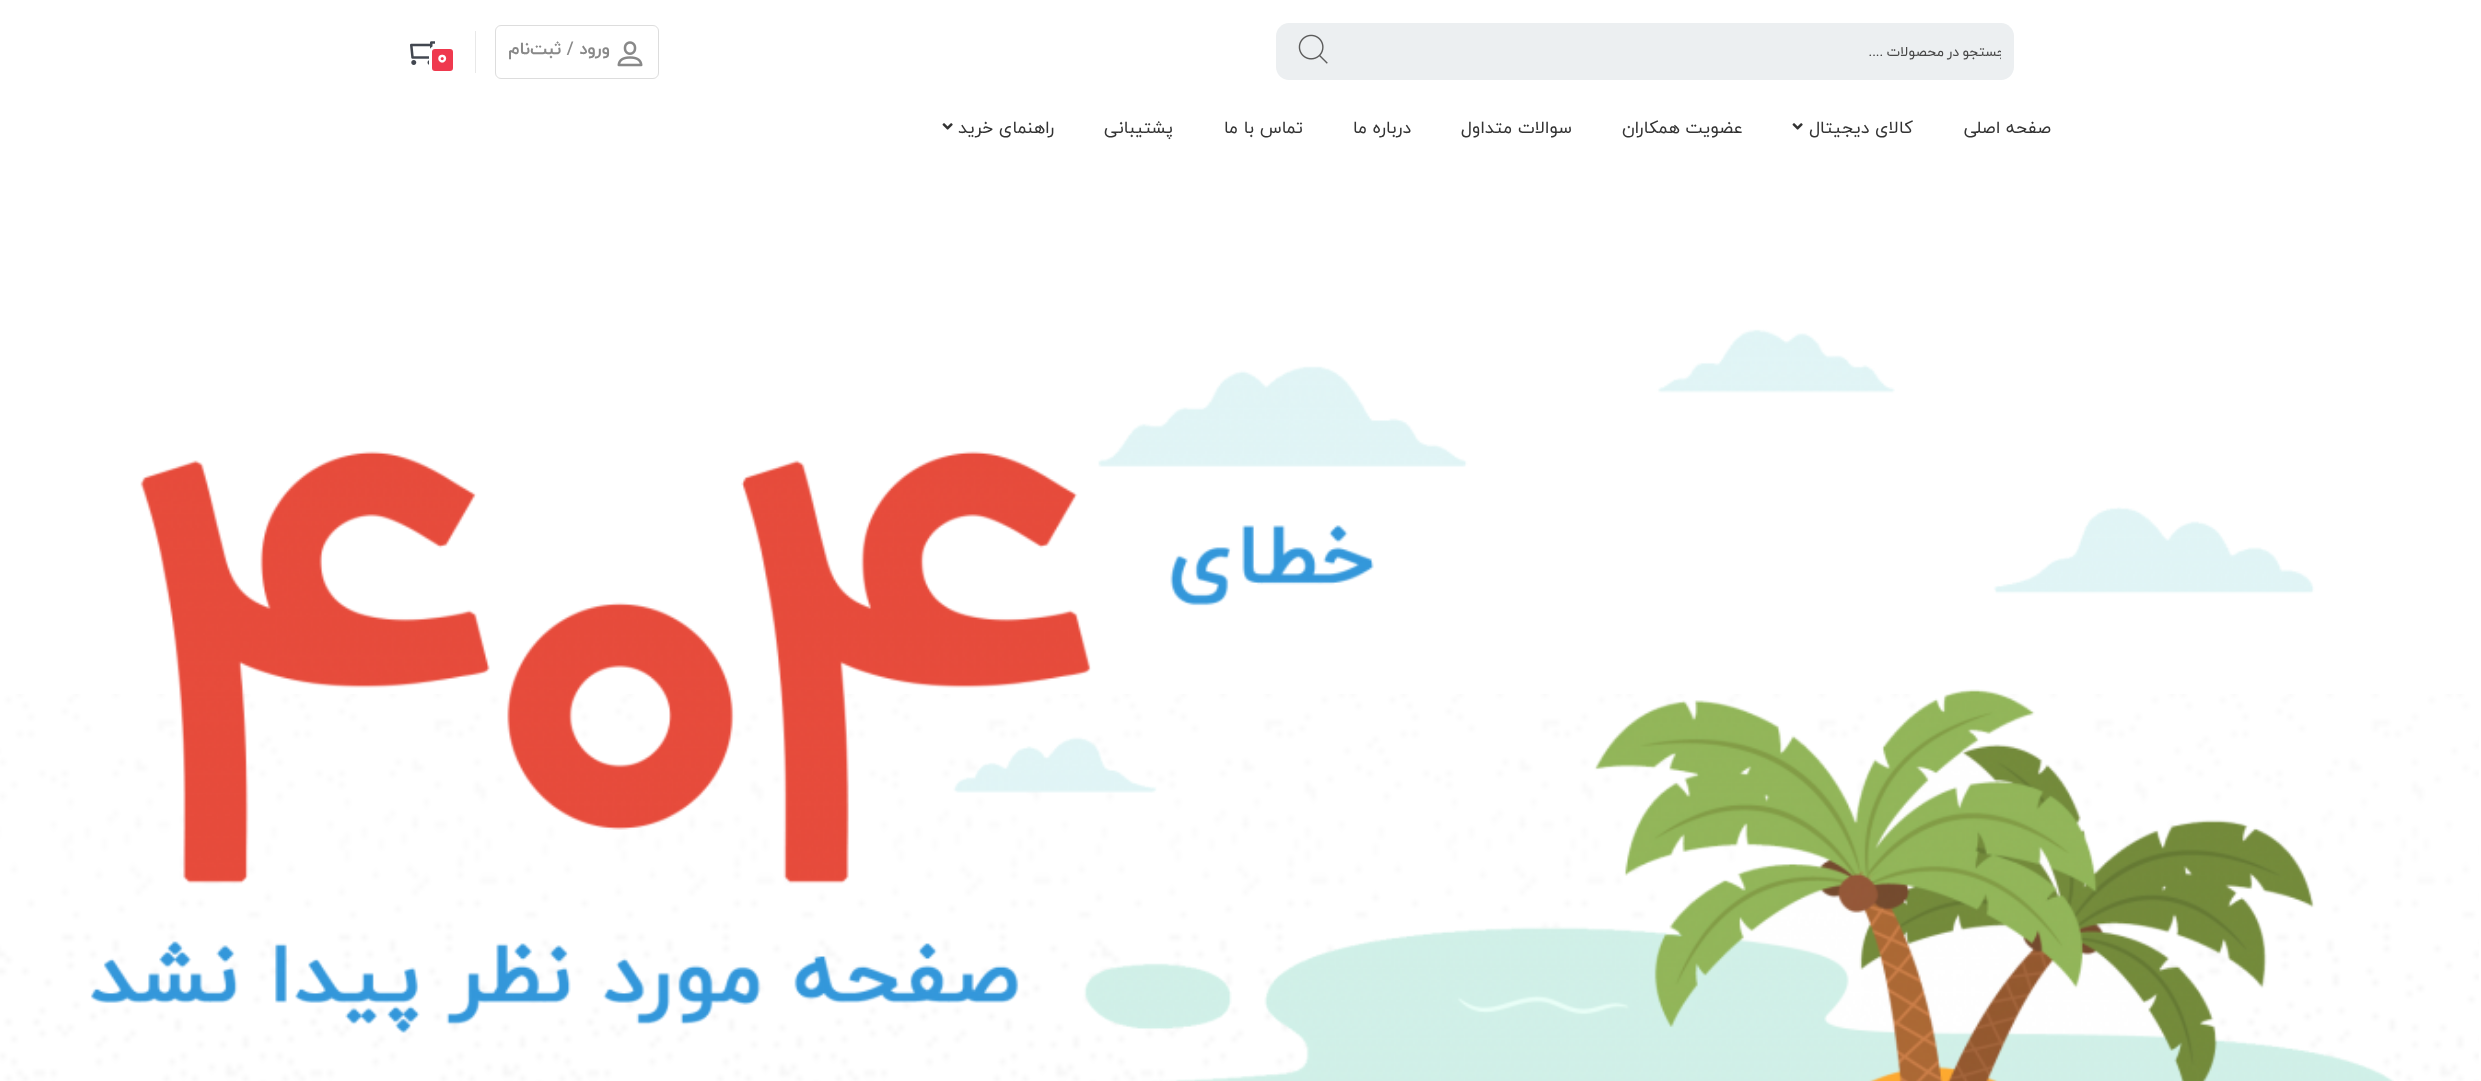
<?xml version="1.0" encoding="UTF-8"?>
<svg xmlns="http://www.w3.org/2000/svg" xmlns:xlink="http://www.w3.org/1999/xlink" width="2481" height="1081">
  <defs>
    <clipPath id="clip1"><rect x="1310" y="40" width="691" height="24" /></clipPath>
    <clipPath id="clip2"><rect x="509" y="26" width="136" height="52" /></clipPath>
  </defs>
  <rect width="100%" height="100%" fill="#ffffff" />
  <path d="M 1298 23 h 703 c 7 0 13 6 13 13 v 31 c 0 7 -6 13 -13 13 h -703 z" fill="#eceff1" />
  <path d="M 1289 23 h 62 v 57 h -62 c -7 0 -13 -6 -13 -13 v -31 c 0 -7 6 -13 13 -13 z" fill="#eceff1" />
  <image x="1298" y="34" width="30" height="30" xlink:href="image1.png" />
  <rect x="495.5" y="25.5" width="163" height="53" rx="5.5" fill="none" stroke="#dddddd" />
  <image x="617" y="41" width="26" height="26" xlink:href="image2.png" />
  <rect x="475" y="31" width="1" height="42" fill="#e8e8e8" />
  <image x="410" y="41" width="25" height="24" xlink:href="image3.png" />
  <rect x="430.5" y="47.5" width="24" height="25" rx="4.5" fill="#ef394e" stroke="#ffffff" stroke-width="3" />
  <image x="1792" y="123" width="11" height="7" xlink:href="image4.png" />
  <image x="942" y="123" width="11" height="7" xlink:href="image4.png" />
  <image x="0" y="694" width="2479" height="387" xlink:href="image5.png" />
  <image x="90" y="329" width="2304" height="752" xlink:href="image6.png" />
  <g clip-path="url(#clip1)">
    <text x="2006" y="56" word-spacing="-1" style="font-family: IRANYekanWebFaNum; font-size: 14px; letter-spacing: 0.4px; direction: rtl; fill: #474747">جستجو در محصولات ....</text>
  </g>
  <g clip-path="url(#clip2)">
    <text x="610" y="54" style="font-family: IRANYekanWebFaNum; font-size: 17.5px; font-weight: bold; direction: rtl; fill: #888888">ورود / ثبت‌نام</text>
  </g>
  <text x="437" y="64" style="font-family: IRANYekanWebFaNum; font-size: 21px; font-weight: bold; fill: #ffffff">0</text>
  <text x="2051" y="133" style="font-family: IRANYekanWebFaNum; font-size: 17.5px; direction: rtl; fill: #333333">صفحه اصلی</text>
  <text x="1913" y="133" style="font-family: IRANYekanWebFaNum; font-size: 17.5px; direction: rtl; fill: #333333">کالای دیجیتال</text>
  <text x="1743" y="133" style="font-family: IRANYekanWebFaNum; font-size: 17.5px; direction: rtl; fill: #333333">عضویت همکاران</text>
  <text x="1572" y="133" style="font-family: IRANYekanWebFaNum; font-size: 17.5px; direction: rtl; fill: #333333">سوالات متداول</text>
  <text x="1411" y="133" style="font-family: IRANYekanWebFaNum; font-size: 17.5px; direction: rtl; fill: #333333">درباره ما</text>
  <text x="1303" y="133" style="font-family: IRANYekanWebFaNum; font-size: 17.5px; direction: rtl; fill: #333333">تماس با ما</text>
  <text x="1173" y="133" style="font-family: IRANYekanWebFaNum; font-size: 17.5px; direction: rtl; fill: #333333">پشتیبانی</text>
  <text x="1054" y="133" style="font-family: IRANYekanWebFaNum; font-size: 17.5px; direction: rtl; fill: #333333">راهنمای خرید</text>
</svg>
